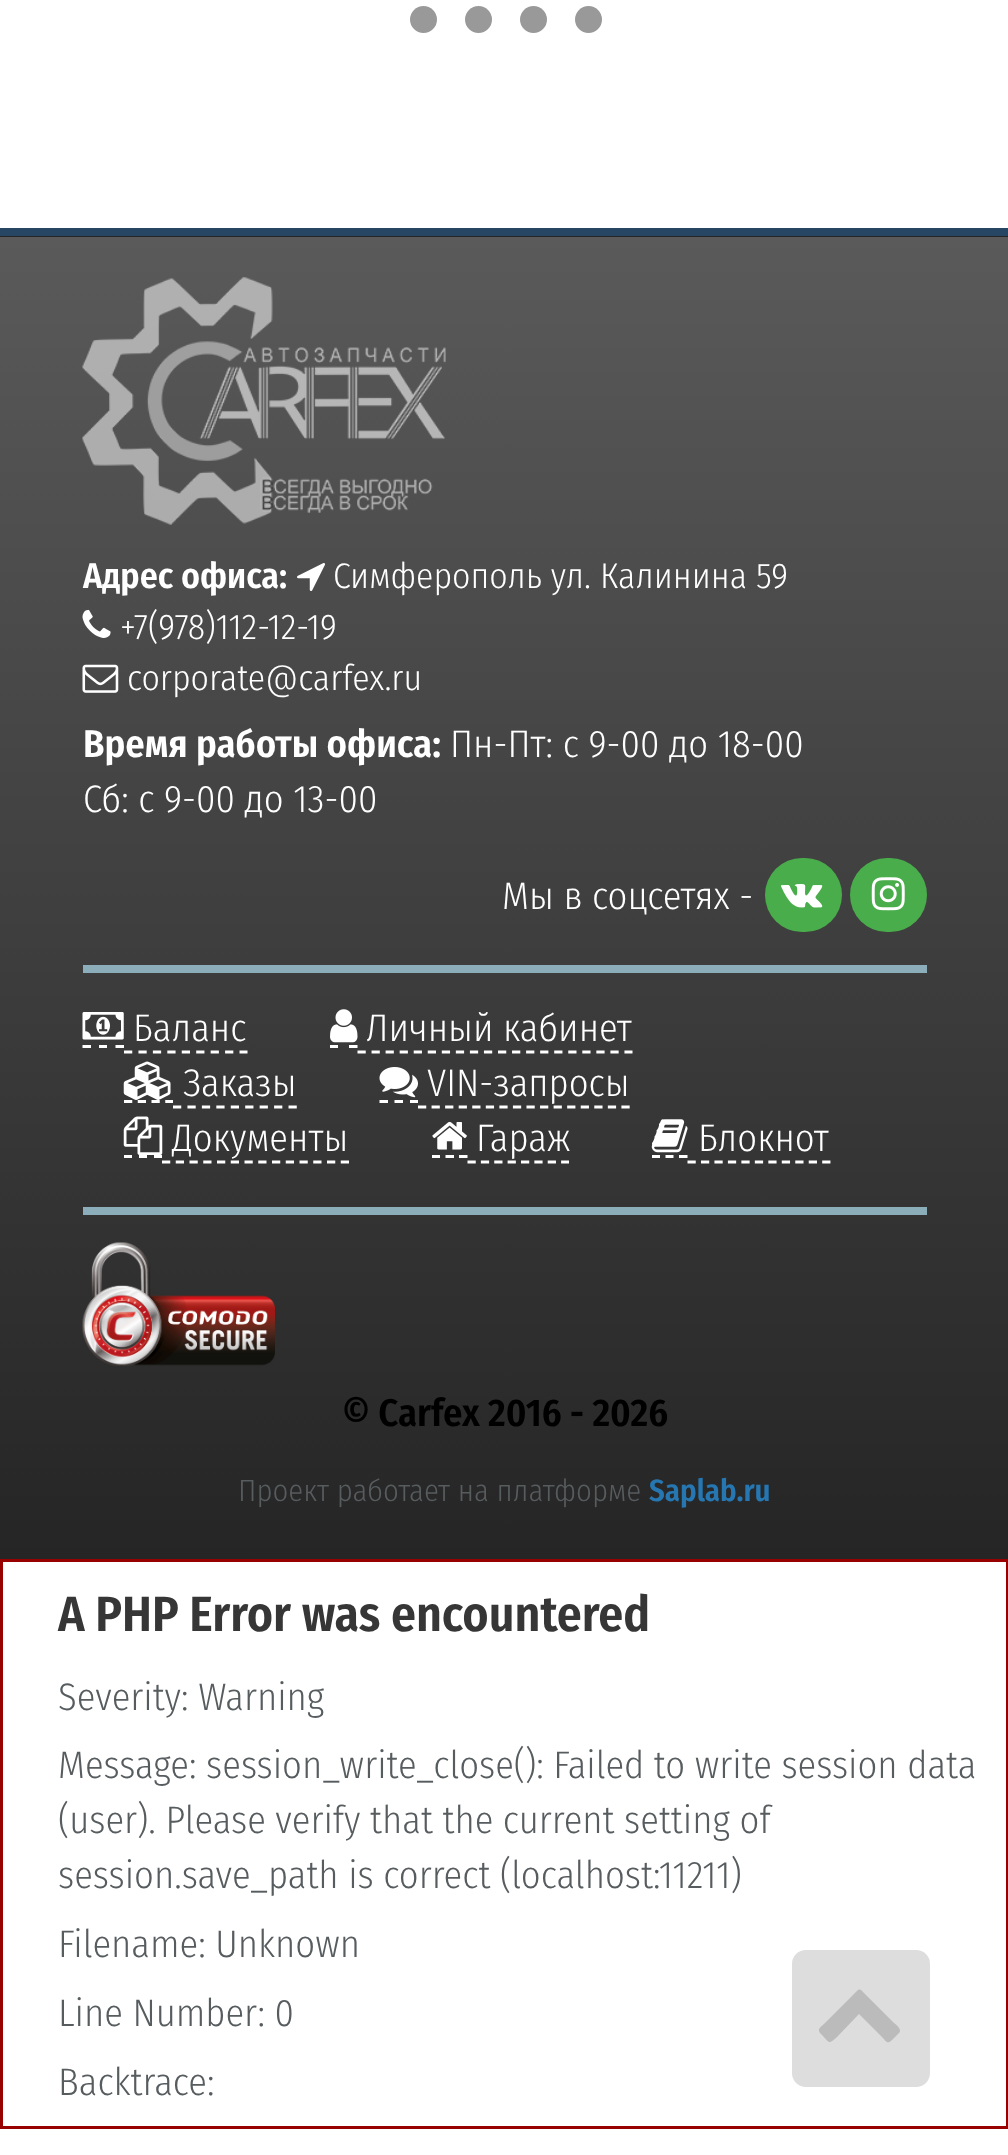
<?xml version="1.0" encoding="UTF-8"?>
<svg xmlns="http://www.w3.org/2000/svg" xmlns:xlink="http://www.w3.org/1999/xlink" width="1008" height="2155">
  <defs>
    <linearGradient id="g1" gradientUnits="userSpaceOnUse" x1="505" y1="-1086" x2="505" y2="237"><stop offset="0" stop-color="#5a5a5a" /><stop offset="1" stop-color="#252525" /></linearGradient>
    <linearGradient id="g2" gradientUnits="userSpaceOnUse" x1="505" y1="236" x2="505" y2="1559"><stop offset="0" stop-color="#5a5a5a" /><stop offset="1" stop-color="#252525" /></linearGradient>
  </defs>
  <rect width="100%" height="100%" fill="#ffffff" />
  <circle cx="423.5" cy="19.5" r="13.5" fill="#999999" />
  <circle cx="478.5" cy="19.5" r="13.5" fill="#999999" />
  <circle cx="533.5" cy="19.5" r="13.5" fill="#999999" />
  <circle cx="588.5" cy="19.5" r="13.5" fill="#999999" />
  <rect y="236" width="1008" height="1" fill="url(#g1)" />
  <rect y="237" width="1008" height="1322" fill="url(#g2)" />
  <rect y="228" width="1008" height="8" fill="#264664" />
  <image x="82" y="277" width="364" height="248" xlink:href="image1.png" />
  <image x="297" y="563" width="28" height="28" xlink:href="image2.png" />
  <image x="82" y="609" width="29" height="29" xlink:href="image3.png" />
  <image x="82" y="664" width="37" height="29" xlink:href="image4.png" />
  <rect x="765" y="858" width="77" height="74" rx="37" fill="#4aad4c" />
  <image x="781" y="884" width="42" height="24" xlink:href="image5.png" />
  <rect x="850" y="858" width="77" height="74" rx="37" fill="#4aad4c" />
  <image x="871" y="877" width="34" height="34" xlink:href="image6.png" />
  <rect x="83" y="965" width="844" height="8" fill="#8caebb" />
  <path d="M 82.5 1046.5 h 8.5 m 8 0 h 8 m 8.5 0 h 8.5" fill="none" stroke="#ffffff" stroke-width="2.8" />
  <path d="M 124 1052 h 123.5" fill="none" stroke="#ffffff" stroke-width="2.8" stroke-dasharray="8.25 6.19" />
  <image x="82" y="1012" width="42" height="28" xlink:href="image7.png" />
  <path d="M 330 1046.5 h 8 m 11 0 h 8.5" fill="none" stroke="#ffffff" stroke-width="2.8" />
  <path d="M 357.5 1052 h 275" fill="none" stroke="#ffffff" stroke-width="2.8" stroke-dasharray="8.25 5.8" />
  <image x="330" y="1009" width="28" height="34" xlink:href="image8.png" />
  <path d="M 124 1101.5 h 49" fill="none" stroke="#ffffff" stroke-width="2.8" stroke-dasharray="8.25 5.5" />
  <path d="M 173 1107 h 124" fill="none" stroke="#ffffff" stroke-width="2.8" stroke-dasharray="8.25 6.19" />
  <image x="123" y="1061" width="48" height="39" xlink:href="image9.png" />
  <path d="M 379.5 1101.5 h 8.5 m 6.5 0 h 8.5 m 7 0 h 8" fill="none" stroke="#ffffff" stroke-width="2.8" />
  <path d="M 418 1107 h 212" fill="none" stroke="#ffffff" stroke-width="2.8" stroke-dasharray="8.25 5.31" />
  <image x="379" y="1067" width="39" height="31" xlink:href="image10.png" />
  <path d="M 124 1156.5 h 8 m 7 0 h 8 m 7 0 h 8" fill="none" stroke="#ffffff" stroke-width="2.8" />
  <path d="M 162 1162 h 187" fill="none" stroke="#ffffff" stroke-width="2.8" stroke-dasharray="8.25 5.5" />
  <image x="123" y="1116" width="40" height="39" xlink:href="image11.png" />
  <path d="M 432 1156.5 h 8 m 5.5 0 h 8.5 m 5 0 h 8.5" fill="none" stroke="#ffffff" stroke-width="2.8" />
  <path d="M 467.5 1162 h 101.5" fill="none" stroke="#ffffff" stroke-width="2.8" stroke-dasharray="8.25 5.12" />
  <image x="432" y="1121" width="35" height="29" xlink:href="image12.png" />
  <path d="M 652 1156.5 h 8 m 5.5 0 h 8 m 5.5 0 h 8.5" fill="none" stroke="#ffffff" stroke-width="2.8" />
  <path d="M 687.5 1162 h 143" fill="none" stroke="#ffffff" stroke-width="2.8" stroke-dasharray="8.25 5.22" />
  <image x="651" y="1119" width="37" height="34" xlink:href="image13.png" />
  <rect x="83" y="1207" width="844" height="8" fill="#8caebb" />
  <image x="82" y="1242" width="193" height="124" xlink:href="image14.png" />
  <rect x="1.5" y="1560.5" width="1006" height="567" fill="none" stroke="#990000" stroke-width="3" />
  <rect x="792" y="1950" width="138" height="137" rx="14" fill="#dddddd" />
  <path d="M 899 2033 l -7 7 c -5 5 -6 1 -10 -3 l -23 -23 l -22 23 c -9 8 -7 6 -16 -3 c -5 -5 0 -7 5 -12 l 25 -25 c 10 -10 7 -10 17 0 l 25 25 c 1 1 10 7 6 11 z" fill="#bbbbbb" />
  <text x="83" y="588" style="font-family: Fira Sans Condensed; font-size: 35.75px; font-weight: 600; fill: #ffffff">Адрес офиса:</text>
  <text x="333" y="588" style="font-family: Fira Sans Condensed; font-size: 35.75px; font-weight: 300; fill: #ffffff">Симферополь ул. Калинина 59</text>
  <text x="120" y="639" style="font-family: Fira Sans Condensed; font-size: 35.75px; font-weight: 300; fill: #ffffff">+7(978)112-12-19</text>
  <text x="127" y="690" style="font-family: Fira Sans Condensed; font-size: 35.75px; font-weight: 300; fill: #ffffff">corporate@carfex.ru</text>
  <text x="83" y="757" style="font-family: Fira Sans Condensed; font-size: 38.5px; font-weight: 600; fill: #ffffff">Время работы офиса:</text>
  <text x="450" y="757" style="font-family: Fira Sans Condensed; font-size: 38.5px; font-weight: 300; fill: #ffffff">Пн-Пт: с 9-00 до 18-00</text>
  <text x="83" y="812" style="font-family: Fira Sans Condensed; font-size: 38.5px; font-weight: 300; fill: #ffffff">Сб: с 9-00 до 13-00</text>
  <text x="502" y="909" style="font-family: Fira Sans Condensed; font-size: 38.5px; font-weight: 300; fill: #ffffff">Мы в соцсетях -</text>
  <text x="133" y="1041" style="font-family: Fira Sans Condensed; font-size: 38.5px; font-weight: 300; fill: #ffffff">Баланс</text>
  <text x="366" y="1041" style="font-family: Fira Sans Condensed; font-size: 38.5px; font-weight: 300; fill: #ffffff">Личный кабинет</text>
  <text x="183" y="1096" style="font-family: Fira Sans Condensed; font-size: 38.5px; font-weight: 300; fill: #ffffff">Заказы</text>
  <text x="427" y="1096" style="font-family: Fira Sans Condensed; font-size: 38.5px; font-weight: 300; fill: #ffffff">VIN-запросы</text>
  <text x="172" y="1151" style="font-family: Fira Sans Condensed; font-size: 38.5px; font-weight: 300; fill: #ffffff">Документы</text>
  <text x="476" y="1151" style="font-family: Fira Sans Condensed; font-size: 38.5px; font-weight: 300; fill: #ffffff">Гараж</text>
  <text x="698" y="1151" style="font-family: Fira Sans Condensed; font-size: 38.5px; font-weight: 300; fill: #ffffff">Блокнот</text>
  <text x="342" y="1426" style="font-family: Fira Sans Condensed; font-size: 38.5px; font-weight: 600; fill: #000000">© Carfex 2016 - 2026</text>
  <text x="238" y="1501" style="font-family: Fira Sans Condensed; font-size: 30.75px; font-weight: 300; fill: #575c5f">Проект работает на платформе</text>
  <text x="649" y="1501" style="font-family: Fira Sans Condensed; font-size: 30.75px; font-weight: 600; fill: #2676b1">Saplab.ru</text>
  <text x="58" y="1631" style="font-family: Fira Sans Condensed; font-size: 49.5px; font-weight: 600; fill: #363636">A PHP Error was encountered</text>
  <text x="58" y="1710" style="font-family: Fira Sans Condensed; font-size: 38.5px; font-weight: 300; fill: #575c5f">Severity: Warning</text>
  <text x="58" y="1778" style="font-family: Fira Sans Condensed; font-size: 38.5px; font-weight: 300; fill: #575c5f">Message: session_write_close(): Failed to write session data</text>
  <text x="58" y="1833" style="font-family: Fira Sans Condensed; font-size: 38.5px; font-weight: 300; fill: #575c5f">(user). Please verify that the current setting of</text>
  <text x="58" y="1888" style="font-family: Fira Sans Condensed; font-size: 38.5px; font-weight: 300; fill: #575c5f">session.save_path is correct (localhost:11211)</text>
  <text x="58" y="1957" style="font-family: Fira Sans Condensed; font-size: 38.5px; font-weight: 300; fill: #575c5f">Filename: Unknown</text>
  <text x="58" y="2026" style="font-family: Fira Sans Condensed; font-size: 38.5px; font-weight: 300; fill: #575c5f">Line Number: 0</text>
  <text x="58" y="2095" style="font-family: Fira Sans Condensed; font-size: 38.5px; font-weight: 300; fill: #575c5f">Backtrace:</text>
</svg>
